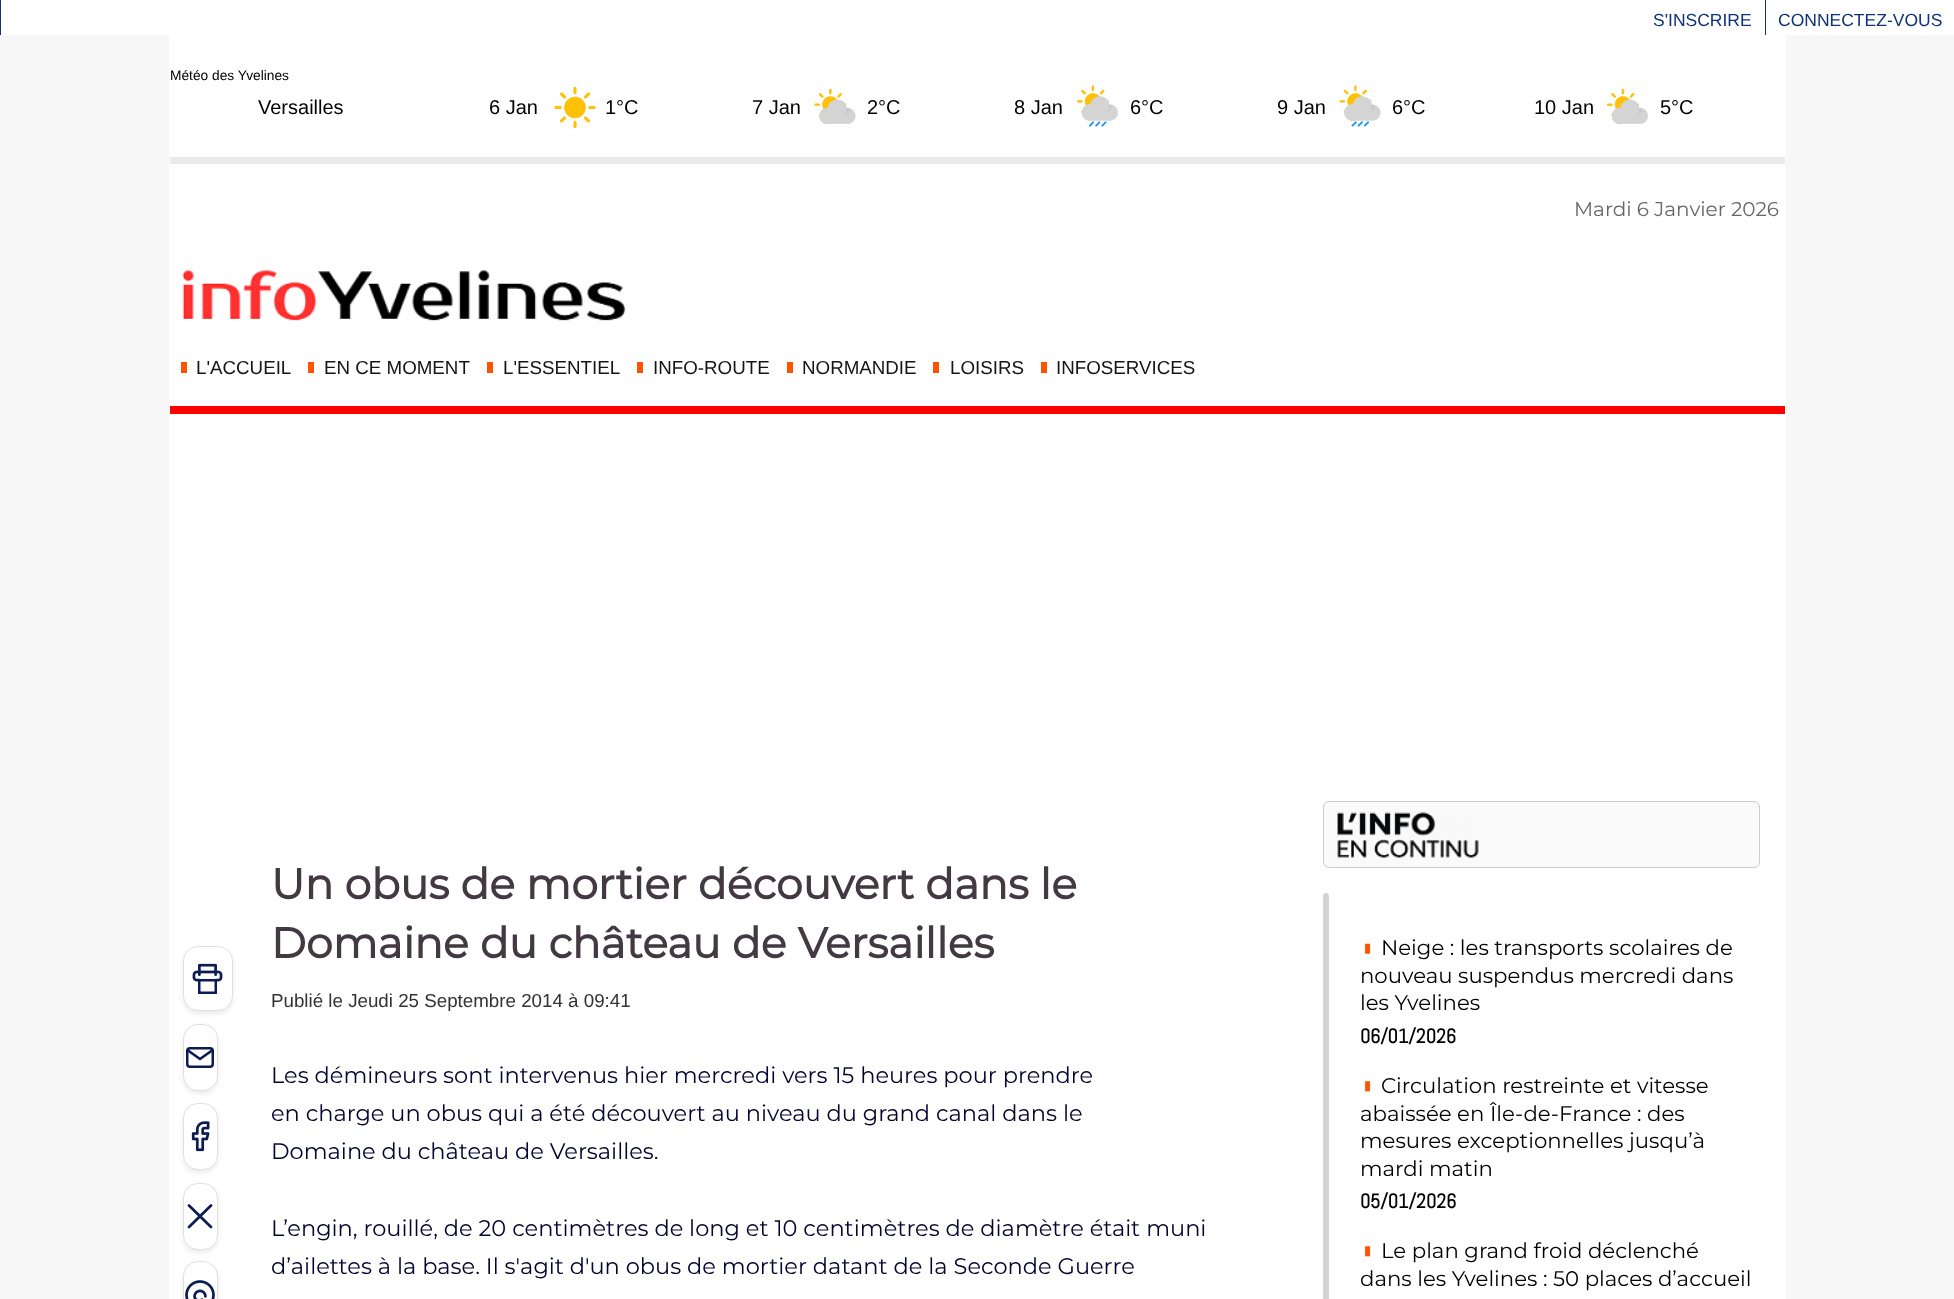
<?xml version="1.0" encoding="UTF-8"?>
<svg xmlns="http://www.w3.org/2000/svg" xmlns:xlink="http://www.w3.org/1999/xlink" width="1954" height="1299">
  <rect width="100%" height="100%" fill="#f7f7f7" />
  <rect x="1785" y="34" width="1" height="1265" fill="#ffffff" />
  <rect x="169" y="34" width="1" height="1265" fill="#ffffff" />
  <rect x="1" width="1953" height="35" fill="#ffffff" />
  <rect width="1" height="35" fill="#0f3375" />
  <rect x="1765" width="1" height="35" fill="#0f3375" />
  <rect x="170" y="35" width="1615" height="1264" fill="#ffffff" />
  <image x="554" y="86" width="42" height="43" xlink:href="image1.png" />
  <image x="814" y="88" width="42" height="37" xlink:href="image2.png" />
  <image x="1077" y="85" width="41" height="42" xlink:href="image3.png" />
  <image x="1339" y="85" width="42" height="42" xlink:href="image4.png" />
  <image x="1607" y="88" width="41" height="37" xlink:href="image5.png" />
  <rect x="170" y="157" width="1615" height="7" fill="#eaeaea" />
  <image x="182" y="269" width="444" height="52" xlink:href="image6.png" />
  <rect x="181" y="362" width="6" height="11" fill="#ff5300" />
  <rect x="308" y="362" width="6" height="11" fill="#ff5300" />
  <rect x="487" y="362" width="6" height="11" fill="#ff5300" />
  <rect x="637" y="362" width="6" height="11" fill="#ff5300" />
  <rect x="787" y="362" width="6" height="11" fill="#ff5300" />
  <rect x="933" y="362" width="6" height="11" fill="#ff5300" />
  <rect x="1041" y="362" width="6" height="11" fill="#ff5300" />
  <rect x="170" y="406" width="1615" height="8" fill="#ff0000" />
  <rect x="183" y="949" width="50" height="65" rx="15" fill="#000000" fill-opacity="0.08" filter="blur(2.5px)" />
  <rect x="183" y="946" width="50" height="65" rx="15" fill="#ffffff" />
  <rect x="183.5" y="946.5" width="49" height="64" rx="14.5" fill="none" stroke="#000000" stroke-opacity="0.12" />
  <image x="192" y="963" width="31" height="31" xlink:href="image7.png" />
  <rect x="183" y="1026" width="35" height="68" rx="15" fill="#000000" fill-opacity="0.08" filter="blur(2.5px)" />
  <rect x="183" y="1024" width="35" height="67" rx="15" fill="#ffffff" />
  <rect x="183.5" y="1024.5" width="34" height="66" rx="14.5" fill="none" stroke="#000000" stroke-opacity="0.12" />
  <rect x="187.25" y="1048.25" width="25.5" height="18.5" rx="2.75" fill="none" stroke="#0b1c52" stroke-width="2.5" />
  <path d="M 188 1050.5 l 12 8.5 l 12 -8.5" fill="none" stroke="#0b1c52" stroke-width="2.7" stroke-linecap="round" stroke-linejoin="round" />
  <rect x="183" y="1105" width="35" height="68" rx="15" fill="#000000" fill-opacity="0.08" filter="blur(2.5px)" />
  <rect x="183" y="1103" width="35" height="67" rx="15" fill="#ffffff" />
  <rect x="183.5" y="1103.5" width="34" height="66" rx="14.5" fill="none" stroke="#000000" stroke-opacity="0.12" />
  <image x="191" y="1121" width="19" height="31" xlink:href="image8.png" />
  <rect x="183" y="1185" width="35" height="68" rx="15" fill="#000000" fill-opacity="0.08" filter="blur(2.5px)" />
  <rect x="183" y="1183" width="35" height="67" rx="15" fill="#ffffff" />
  <rect x="183.5" y="1183.5" width="34" height="66" rx="14.5" fill="none" stroke="#000000" stroke-opacity="0.12" />
  <path d="M 189 1205.5 l 22 21.5 m 0 -21.5 l -22 21.5" fill="none" stroke="#0b1c52" stroke-width="2.7" stroke-linecap="round" stroke-linejoin="round" />
  <rect x="183" y="1264" width="35" height="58" rx="15" fill="#000000" fill-opacity="0.08" filter="blur(2.5px)" />
  <rect x="183" y="1261" width="35" height="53" rx="15" fill="#ffffff" />
  <rect x="183.5" y="1261.5" width="34" height="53" rx="14.5" fill="none" stroke="#000000" stroke-opacity="0.12" />
  <image x="185" y="1280" width="30" height="19" xlink:href="image9.png" />
  <rect x="1323.5" y="801.5" width="436" height="66" rx="5.5" fill="#fafafa" stroke="#cccccc" />
  <image x="1337" y="812" width="142" height="46" xlink:href="image10.png" />
  <path d="M 1326 893 c 1.5 0 3 1.5 3 3 v 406 h -6 v -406 c 0 -1.5 1.5 -3 3 -3 z" fill="#d3d3d3" />
  <image x="1364" y="943" width="7" height="11" xlink:href="image11.png" />
  <image x="1364" y="1081" width="7" height="11" xlink:href="image12.png" />
  <image x="1364" y="1246" width="7" height="11" xlink:href="image12.png" />
  <text x="1653" y="26" style="font-family: Liberation Sans; font-size: 17.5px; fill: #0f3375">S'INSCRIRE</text>
  <text x="1778" y="26" style="font-family: Liberation Sans; font-size: 17.5px; fill: #0f3375">CONNECTEZ-VOUS</text>
  <text x="170" y="80" style="font-family: Liberation Sans; font-size: 13.75px; fill: #000000">Météo des Yvelines</text>
  <text x="258" y="114" style="font-family: Liberation Sans; font-size: 20px; fill: #000000">Versailles</text>
  <text x="489" y="114" style="font-family: Liberation Sans; font-size: 20px; fill: #000000">6 Jan</text>
  <text x="605" y="114" style="font-family: Liberation Sans; font-size: 20px; fill: #000000">1°C</text>
  <text x="752" y="114" style="font-family: Liberation Sans; font-size: 20px; fill: #000000">7 Jan</text>
  <text x="867" y="114" style="font-family: Liberation Sans; font-size: 20px; fill: #000000">2°C</text>
  <text x="1014" y="114" style="font-family: Liberation Sans; font-size: 20px; fill: #000000">8 Jan</text>
  <text x="1130" y="114" style="font-family: Liberation Sans; font-size: 20px; fill: #000000">6°C</text>
  <text x="1277" y="114" style="font-family: Liberation Sans; font-size: 20px; fill: #000000">9 Jan</text>
  <text x="1392" y="114" style="font-family: Liberation Sans; font-size: 20px; fill: #000000">6°C</text>
  <text x="1534" y="114" style="font-family: Liberation Sans; font-size: 20px; fill: #000000">10 Jan</text>
  <text x="1660" y="114" style="font-family: Liberation Sans; font-size: 20px; fill: #000000">5°C</text>
  <text x="1574" y="216" style="font-family: Montserrat; font-size: 20px; font-weight: 100; fill: #666666">Mardi 6 Janvier 2026</text>
  <text x="196" y="374" style="font-family: Liberation Sans; font-size: 18.75px; fill: #151515">L'ACCUEIL</text>
  <text x="324" y="374" style="font-family: Liberation Sans; font-size: 18.75px; fill: #151515">EN CE MOMENT</text>
  <text x="503" y="374" style="font-family: Liberation Sans; font-size: 18.75px; fill: #151515">L'ESSENTIEL</text>
  <text x="653" y="374" style="font-family: Liberation Sans; font-size: 18.75px; fill: #151515">INFO-ROUTE</text>
  <text x="802" y="374" style="font-family: Liberation Sans; font-size: 18.75px; fill: #151515">NORMANDIE</text>
  <text x="950" y="374" style="font-family: Liberation Sans; font-size: 18.75px; fill: #151515">LOISIRS</text>
  <text x="1056" y="374" style="font-family: Liberation Sans; font-size: 18.75px; fill: #151515">INFOSERVICES</text>
  <text x="271" y="899" style="font-family: Montserrat; font-size: 42.5px; font-weight: bold; fill: #423942">Un obus de mortier découvert dans le</text>
  <text x="271" y="958" style="font-family: Montserrat; font-size: 42.5px; font-weight: bold; fill: #423942">Domaine du château de Versailles</text>
  <text x="271" y="1007" style="font-family: Liberation Sans; font-size: 18.75px; fill: #333333">Publié le Jeudi 25 Septembre 2014 à 09:41</text>
  <text x="271" y="1083" style="font-family: Montserrat; font-size: 22.5px; font-weight: 100; fill: #040430">Les démineurs sont intervenus hier mercredi vers 15 heures pour prendre</text>
  <text x="271" y="1121" style="font-family: Montserrat; font-size: 22.5px; font-weight: 100; fill: #040430">en charge un obus qui a été découvert au niveau du grand canal dans le</text>
  <text x="271" y="1159" style="font-family: Montserrat; font-size: 22.5px; font-weight: 100; fill: #040430">Domaine du château de Versailles.</text>
  <text x="271" y="1236" style="font-family: Montserrat; font-size: 22.5px; font-weight: 100; fill: #040430">L’engin, rouillé, de 20 centimètres de long et 10 centimètres de diamètre était muni</text>
  <text x="271" y="1274" style="font-family: Montserrat; font-size: 22.5px; font-weight: 100; fill: #040430">d’ailettes à la base. Il s'agit d'un obus de mortier datant de la Seconde Guerre</text>
  <text x="1381" y="955" style="font-family: Montserrat; font-size: 21.25px; font-weight: 100; fill: #000000">Neige : les transports scolaires de</text>
  <text x="1360" y="983" style="font-family: Montserrat; font-size: 21.25px; font-weight: 100; fill: #000000">nouveau suspendus mercredi dans</text>
  <text x="1360" y="1010" style="font-family: Montserrat; font-size: 21.25px; font-weight: 100; fill: #000000">les Yvelines</text>
  <text x="1360" y="1043" style="font-family: Abel; font-size: 20px; font-weight: bold; fill: #000000">06/01/2026</text>
  <text x="1381" y="1093" style="font-family: Montserrat; font-size: 21.25px; font-weight: 100; fill: #000000">Circulation restreinte et vitesse</text>
  <text x="1360" y="1121" style="font-family: Montserrat; font-size: 21.25px; font-weight: 100; fill: #000000">abaissée en Île-de-France : des</text>
  <text x="1360" y="1148" style="font-family: Montserrat; font-size: 21.25px; font-weight: 100; fill: #000000">mesures exceptionnelles jusqu’à</text>
  <text x="1360" y="1176" style="font-family: Montserrat; font-size: 21.25px; font-weight: 100; fill: #000000">mardi matin</text>
  <text x="1360" y="1208" style="font-family: Abel; font-size: 20px; font-weight: bold; fill: #000000">05/01/2026</text>
  <text x="1381" y="1258" style="font-family: Montserrat; font-size: 21.25px; font-weight: 100; fill: #000000">Le plan grand froid déclenché</text>
  <text x="1360" y="1286" style="font-family: Montserrat; font-size: 21.25px; font-weight: 100; fill: #000000">dans les Yvelines : 50 places d’accueil</text>
</svg>
